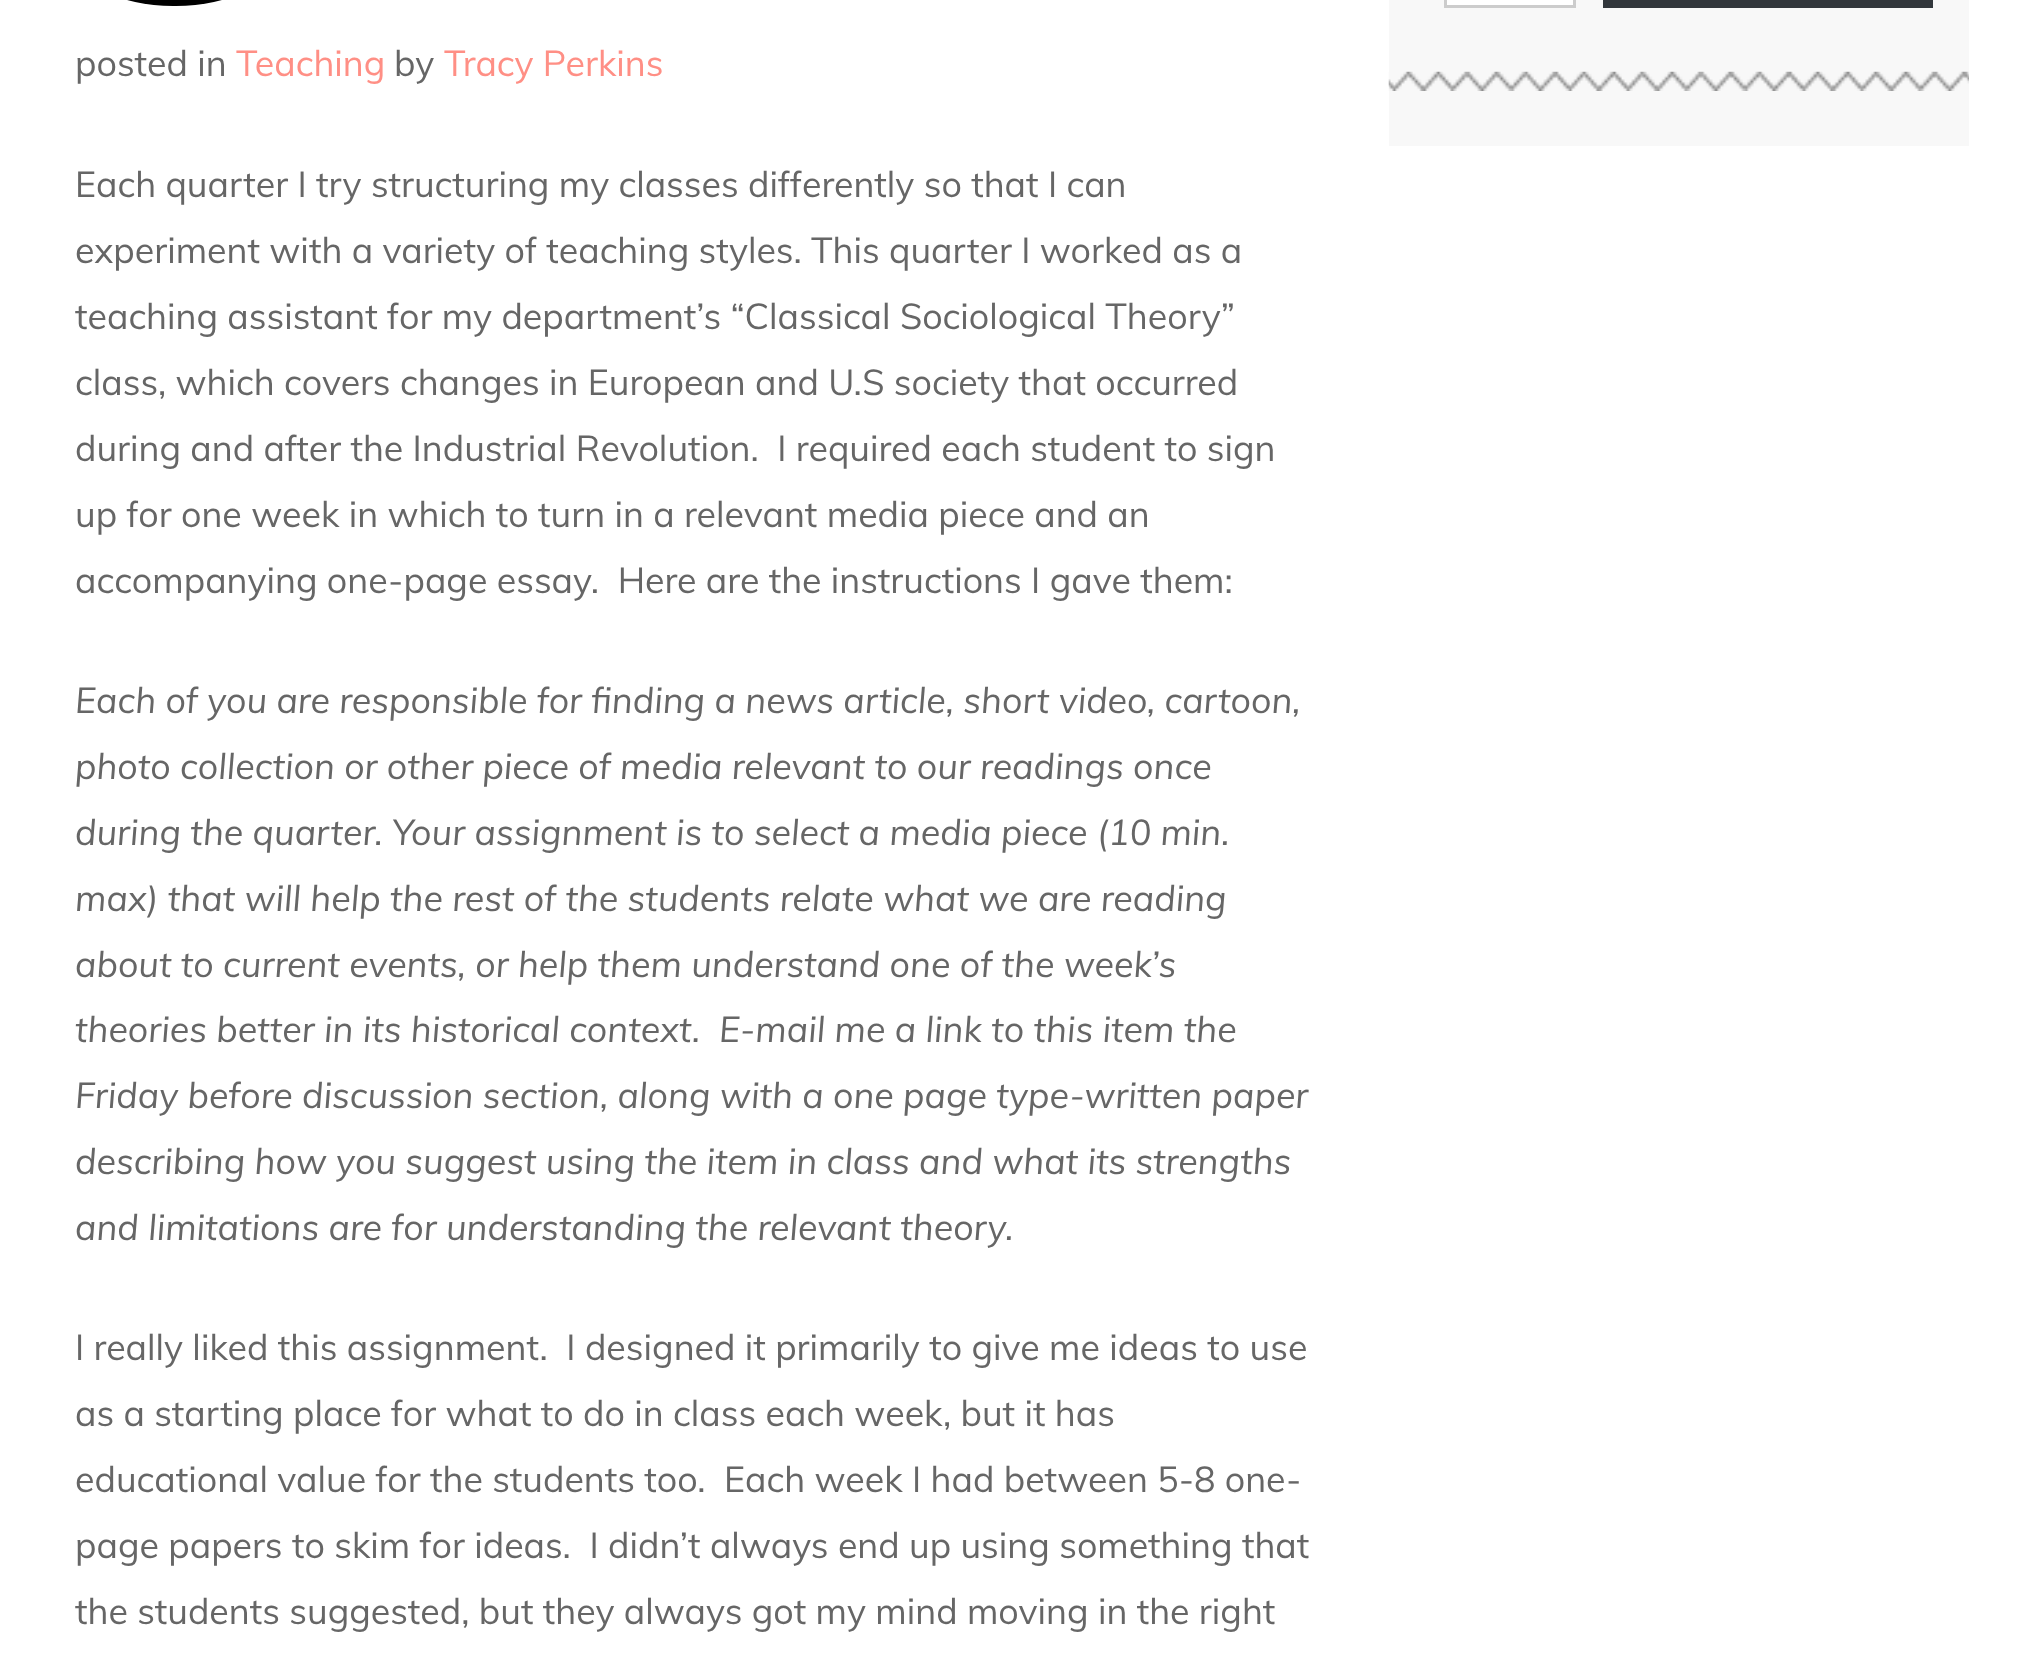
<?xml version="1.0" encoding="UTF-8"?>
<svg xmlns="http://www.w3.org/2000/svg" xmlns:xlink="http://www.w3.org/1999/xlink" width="2041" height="1661">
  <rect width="100%" height="100%" fill="#ffffff" />
  <rect x="74" y="-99" width="201" height="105" rx="99" fill="#000000" />
  <rect x="1389" width="580" height="146" fill="#f8f8f8" />
  <image x="1388" y="71" width="581" height="20" xlink:href="image1.png" />
  <rect x="1445.5" y="-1.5" width="129" height="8" fill="#ffffff" stroke="#cccccc" stroke-width="3" />
  <rect x="1603" width="330" height="8" fill="#32373c" />
  <text x="75" y="76" style="font-family: Muli; font-size: 35.75px; fill: #666666">posted in</text>
  <text x="236" y="76" style="font-family: Muli; font-size: 35.75px; fill: #ff8f85">Teaching</text>
  <text x="394" y="76" style="font-family: Muli; font-size: 35.75px; fill: #666666">by</text>
  <text x="444" y="76" style="font-family: Muli; font-size: 35.75px; fill: #ff8f85">Tracy Perkins</text>
  <text x="75" y="197" style="font-family: Muli; font-size: 35.75px; fill: #666666">Each quarter I try structuring my classes differently so that I can</text>
  <text x="75" y="263" style="font-family: Muli; font-size: 35.75px; fill: #666666">experiment with a variety of teaching styles. This quarter I worked as a</text>
  <text x="75" y="329" style="font-family: Muli; font-size: 35.75px; fill: #666666">teaching assistant for my department’s “Classical Sociological Theory”</text>
  <text x="75" y="395" style="font-family: Muli; font-size: 35.75px; fill: #666666">class, which covers changes in European and U.S society that occurred</text>
  <text x="75" y="461" style="font-family: Muli; font-size: 35.75px; fill: #666666" xml:space="preserve">during and after the Industrial Revolution.  I required each student to sign</text>
  <text x="75" y="527" style="font-family: Muli; font-size: 35.75px; fill: #666666">up for one week in which to turn in a relevant media piece and an</text>
  <text x="75" y="593" style="font-family: Muli; font-size: 35.75px; fill: #666666" xml:space="preserve">accompanying one-page essay.  Here are the instructions I gave them:</text>
  <text x="75" y="713" style="font-family: Muli; font-size: 35.75px; font-style: italic; fill: #666666">Each of you are responsible for finding a news article, short video, cartoon,</text>
  <text x="75" y="779" style="font-family: Muli; font-size: 35.75px; font-style: italic; fill: #666666">photo collection or other piece of media relevant to our readings once</text>
  <text x="75" y="845" style="font-family: Muli; font-size: 35.75px; font-style: italic; fill: #666666">during the quarter. Your assignment is to select a media piece (10 min.</text>
  <text x="75" y="911" style="font-family: Muli; font-size: 35.75px; font-style: italic; fill: #666666">max) that will help the rest of the students relate what we are reading</text>
  <text x="75" y="977" style="font-family: Muli; font-size: 35.75px; font-style: italic; fill: #666666">about to current events, or help them understand one of the week’s</text>
  <text x="75" y="1042" style="font-family: Muli; font-size: 35.75px; font-style: italic; fill: #666666" xml:space="preserve">theories better in its historical context.  E-mail me a link to this item the</text>
  <text x="75" y="1108" style="font-family: Muli; font-size: 35.75px; font-style: italic; fill: #666666">Friday before discussion section, along with a one page type-written paper</text>
  <text x="75" y="1174" style="font-family: Muli; font-size: 35.75px; font-style: italic; fill: #666666">describing how you suggest using the item in class and what its strengths</text>
  <text x="75" y="1240" style="font-family: Muli; font-size: 35.75px; font-style: italic; fill: #666666">and limitations are for understanding the relevant theory.</text>
  <text x="75" y="1360" style="font-family: Muli; font-size: 35.75px; fill: #666666" xml:space="preserve">I really liked this assignment.  I designed it primarily to give me ideas to use</text>
  <text x="75" y="1426" style="font-family: Muli; font-size: 35.75px; fill: #666666">as a starting place for what to do in class each week, but it has</text>
  <text x="75" y="1492" style="font-family: Muli; font-size: 35.75px; fill: #666666" xml:space="preserve">educational value for the students too.  Each week I had between 5-8 one-</text>
  <text x="75" y="1558" style="font-family: Muli; font-size: 35.75px; fill: #666666" xml:space="preserve">page papers to skim for ideas.  I didn’t always end up using something that</text>
  <text x="75" y="1624" style="font-family: Muli; font-size: 35.75px; fill: #666666">the students suggested, but they always got my mind moving in the right</text>
</svg>
